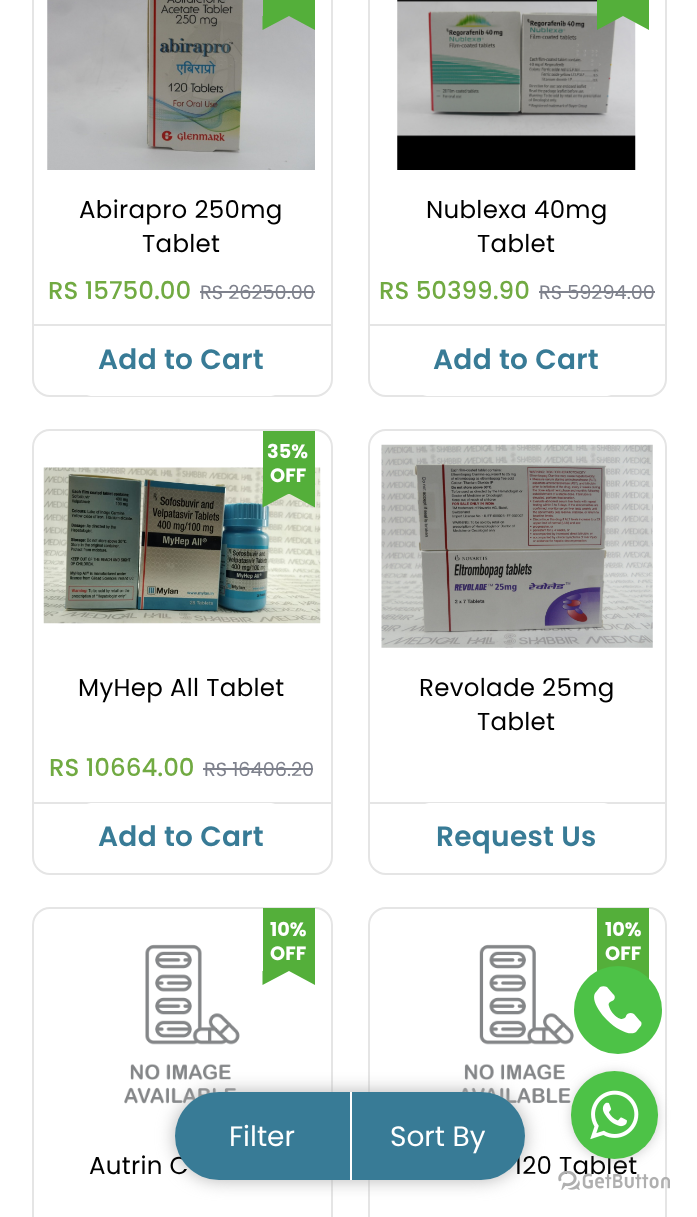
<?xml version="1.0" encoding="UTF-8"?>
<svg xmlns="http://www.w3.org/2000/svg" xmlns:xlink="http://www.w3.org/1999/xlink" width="697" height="1217">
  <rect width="100%" height="100%" fill="#ffffff" />
  <rect x="33" y="-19" width="299" height="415" rx="17" fill="none" stroke="#e5e5e5" stroke-width="2" />
  <image x="47" y="0" width="268" height="170" xlink:href="image1.png" />
  <rect x="263" width="52" height="16" fill="#54af3a" />
  <path d="M 315 16 v 14 l -26 -14 z m -52.5 14 v -14 h 26.5 z" fill="#54af3a" />
  <rect x="200" y="291" width="115" height="2" fill="#7e818c" />
  <rect x="33" y="324" width="298" height="2" fill="#e5e5e5" />
  <rect x="82" y="326" width="198" height="70" rx="9" fill="#ffffff" />
  <rect x="369" y="-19" width="297" height="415" rx="17" fill="none" stroke="#e5e5e5" stroke-width="2" />
  <image x="397" y="0" width="239" height="170" xlink:href="image2.png" />
  <rect x="597" width="52" height="16" fill="#54af3a" />
  <path d="M 649 16 v 14 l -26 -14 z m -52 14 v -14 h 26 z" fill="#54af3a" />
  <rect x="539" y="291" width="116" height="2" fill="#7e818c" />
  <rect x="369" y="324" width="296" height="2" fill="#e5e5e5" />
  <rect x="418" y="326" width="198" height="70" rx="9" fill="#ffffff" />
  <rect x="33" y="430" width="299" height="444" rx="17" fill="none" stroke="#e5e5e5" stroke-width="2" />
  <image x="43" y="467" width="278" height="157" xlink:href="image3.png" />
  <rect x="263" y="431" width="52" height="63" fill="#54af3a" />
  <path d="M 315 493.5 v 14 l -26 -14 z m -52.5 14 v -14 h 26.5 z" fill="#54af3a" />
  <rect x="203" y="768" width="110" height="2" fill="#7e818c" />
  <rect x="33" y="802" width="298" height="2" fill="#e5e5e5" />
  <rect x="82" y="803" width="198" height="70" rx="9" fill="#ffffff" />
  <rect x="369" y="430" width="297" height="444" rx="17" fill="none" stroke="#e5e5e5" stroke-width="2" />
  <image x="381" y="444" width="272" height="204" xlink:href="image4.png" />
  <rect x="369" y="802" width="296" height="2" fill="#e5e5e5" />
  <rect x="420" y="803" width="193" height="70" rx="9" fill="#ffffff" />
  <rect x="33" y="908" width="299" height="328" rx="17" fill="none" stroke="#e5e5e5" stroke-width="2" />
  <rect x="263" y="908" width="52" height="63" fill="#54af3a" />
  <path d="M 315 971 v 14 l -26 -14 z m -52.5 14 v -14 h 26.5 z" fill="#54af3a" />
  <image x="124" y="944" width="116" height="160" xlink:href="image5.png" />
  <rect x="369" y="908" width="297" height="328" rx="17" fill="none" stroke="#e5e5e5" stroke-width="2" />
  <rect x="597" y="908" width="52" height="63" fill="#54af3a" />
  <path d="M 649 971 v 14 l -26 -14 z" fill="#54af3a" />
  <image x="462" y="944" width="112" height="160" xlink:href="image6.png" />
  <rect x="175" y="1092" width="350" height="88" rx="44" fill="#afafaf" fill-opacity="0.92" filter="blur(9px)" />
  <circle cx="618" cy="1010" r="44" fill="#4dc247" />
  <path d="M 640 1021 l -6 -7 c -3 -2 -7 -1 -8 2 c 0 2 -3 3 -5 3 c -5 -1 -11 -8 -12 -13 c -1 -2 0 -4 3 -5 c 3 -1 4 -5 1 -7 l -6 -7 c -2 -1 -5 -1 -7 0 l -4 5 c -5 5 0 17 11 28 c 11 11 24 16 29 12 l 4 -5 c 2 -2 2 -5 0 -6 z" fill="#ffffff" />
  <text x="79" y="218" style="font-family: Poppins; font-size: 24.5px; letter-spacing: 0.3px; fill: #000000">Abirapro 250mg</text>
  <text x="142" y="252" style="font-family: Poppins; font-size: 24.5px; letter-spacing: 0.3px; fill: #000000">Tablet</text>
  <text x="48" y="299" style="font-family: Poppins; font-size: 24.5px; font-weight: 500; fill: #71aa42">RS 15750.00</text>
  <text x="200" y="299" style="font-family: Poppins; font-size: 19.25px; fill: #7e818c">RS 26250.00</text>
  <text x="98" y="369" style="font-family: Poppins; font-size: 28px; font-weight: 600; letter-spacing: 0.3px; fill: #387b96">Add to Cart</text>
  <text x="426" y="218" style="font-family: Poppins; font-size: 24.5px; letter-spacing: 0.3px; fill: #000000">Nublexa 40mg</text>
  <text x="477" y="252" style="font-family: Poppins; font-size: 24.5px; letter-spacing: 0.3px; fill: #000000">Tablet</text>
  <text x="379" y="299" style="font-family: Poppins; font-size: 24.5px; font-weight: 500; fill: #71aa42">RS 50399.90</text>
  <text x="539" y="299" style="font-family: Poppins; font-size: 19.25px; fill: #7e818c">RS 59294.00</text>
  <text x="433" y="369" style="font-family: Poppins; font-size: 28px; font-weight: 600; letter-spacing: 0.3px; fill: #387b96">Add to Cart</text>
  <text x="267" y="458" style="font-family: Poppins; font-size: 19.25px; font-weight: bold; fill: #ffffff">35%</text>
  <text x="270" y="482" style="font-family: Poppins; font-size: 19.25px; font-weight: bold; fill: #ffffff">OFF</text>
  <text x="49" y="776" style="font-family: Poppins; font-size: 24.5px; font-weight: 500; fill: #71aa42">RS 10664.00</text>
  <text x="204" y="776" style="font-family: Poppins; font-size: 19.25px; fill: #7e818c">RS 16406.20</text>
  <text x="78" y="696" style="font-family: Poppins; font-size: 24.5px; letter-spacing: 0.3px; fill: #000000">MyHep All Tablet</text>
  <text x="98" y="846" style="font-family: Poppins; font-size: 28px; font-weight: 600; letter-spacing: 0.3px; fill: #387b96">Add to Cart</text>
  <text x="419" y="696" style="font-family: Poppins; font-size: 24.5px; letter-spacing: 0.3px; fill: #000000">Revolade 25mg</text>
  <text x="477" y="730" style="font-family: Poppins; font-size: 24.5px; letter-spacing: 0.3px; fill: #000000">Tablet</text>
  <text x="436" y="846" style="font-family: Poppins; font-size: 28px; font-weight: 600; letter-spacing: 0.3px; fill: #387b96">Request Us</text>
  <text x="270" y="936" style="font-family: Poppins; font-size: 19.25px; font-weight: bold; fill: #ffffff">10%</text>
  <text x="270" y="960" style="font-family: Poppins; font-size: 19.25px; font-weight: bold; fill: #ffffff">OFF</text>
  <text x="89" y="1174" style="font-family: Poppins; font-size: 24.5px; letter-spacing: 0.3px; fill: #000000">Autrin C</text>
  <text x="605" y="936" style="font-family: Poppins; font-size: 19.25px; font-weight: bold; fill: #ffffff">10%</text>
  <text x="605" y="960" style="font-family: Poppins; font-size: 19.25px; font-weight: bold; fill: #ffffff">OFF</text>
  <text x="514" y="1174" style="font-family: Poppins; font-size: 24.5px; letter-spacing: 0.3px; fill: #000000">120 Tablet</text>
  <rect x="175" y="1092" width="350" height="88" rx="44" fill="#387b96" />
  <text x="229" y="1146" style="font-family: Poppins; font-size: 28px; fill: #ffffff">Filter</text>
  <rect x="350" y="1092" width="2" height="88" fill="#ffffff" />
  <text x="390" y="1146" style="font-family: Poppins; font-size: 28px; fill: #ffffff">Sort By</text>
  <image x="558" y="1171" width="112" height="19" xlink:href="image8.png" />
  <rect x="571" y="1073" width="87" height="87" rx="43.5" fill="#888888" fill-opacity="0.4" filter="blur(6px)" />
  <rect x="571" y="1071" width="87" height="88" rx="43.5" fill="#4dc247" />
  <image x="590" y="1090" width="49" height="50" xlink:href="image7.png" />
</svg>
